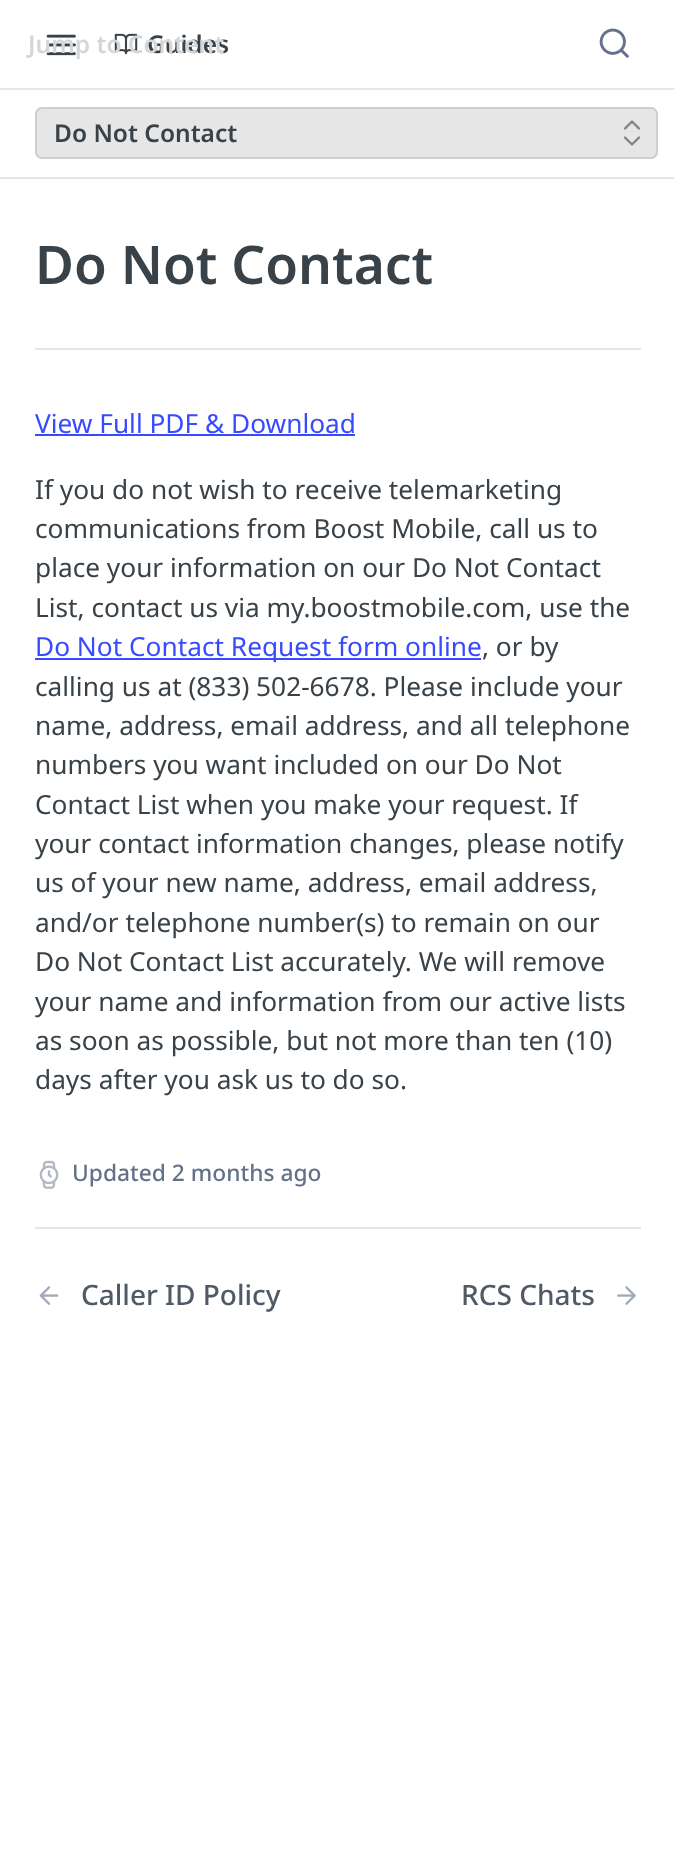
<?xml version="1.0" encoding="UTF-8"?>
<svg xmlns="http://www.w3.org/2000/svg" xmlns:xlink="http://www.w3.org/1999/xlink" width="674" height="1868">
  <rect width="100%" height="100%" fill="#ffffff" />
  <path d="M 0 177 v 2 h 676 v -177 v 175 z" fill="#e6e6e6" />
  <rect y="88" width="674" height="2" fill="#e6e6e6" />
  <image x="46" y="34" width="30" height="22" xlink:href="image1.png" />
  <image x="114" y="33" width="24" height="22" xlink:href="image2.png" />
  <image x="599" y="28" width="30" height="30" xlink:href="image3.png" />
  <rect x="35" y="107" width="623" height="52" rx="7" fill="#e6e6e6" />
  <rect x="36" y="108" width="621" height="50" rx="6" fill="none" stroke="#000000" stroke-opacity="0.1" stroke-width="2" />
  <path d="M 625 137.5 l 7 7 l 7 -7 m 0 -9 l -7 -7 l -7 7" fill="none" stroke="#7e8487" stroke-width="2.3" stroke-linecap="round" stroke-linejoin="round" />
  <rect x="35" y="348" width="606" height="2" fill="#e6e6e6" />
  <rect x="35" y="434" width="320" height="2" fill="#384aff" />
  <rect x="35" y="658" width="446" height="2" fill="#384aff" />
  <image x="39" y="1160" width="20" height="29" xlink:href="image4.png" />
  <rect x="35" y="1227" width="606" height="2" fill="#e6e6e6" />
  <image x="39" y="1286" width="20" height="19" xlink:href="image5.png" />
  <image x="617" y="1286" width="19" height="19" xlink:href="image6.png" />
  <text x="147" y="53" style="font-family: Noto Sans; font-size: 24.5px; font-weight: 600; fill: #384248">Guides</text>
  <text x="28" y="53" style="font-family: Noto Sans; font-size: 24.5px; font-weight: 600; fill: #d4d6d8">Jump to Content</text>
  <text x="54" y="142" style="font-family: Noto Sans; font-size: 24.5px; font-weight: 600; fill: #384248">Do Not Contact</text>
  <text x="35" y="284" style="font-family: Noto Sans; font-size: 53.25px; font-weight: 600; fill: #384248">Do Not Contact</text>
  <text x="35" y="433" style="font-family: Noto Sans; font-size: 26.25px; fill: #384aff">View Full PDF &amp; Download</text>
  <text x="35" y="499" style="font-family: Noto Sans; font-size: 26.25px; fill: #384248">If you do not wish to receive telemarketing</text>
  <text x="35" y="538" style="font-family: Noto Sans; font-size: 26.25px; fill: #384248">communications from Boost Mobile, call us to</text>
  <text x="35" y="577" style="font-family: Noto Sans; font-size: 26.25px; fill: #384248">place your information on our Do Not Contact</text>
  <text x="35" y="617" style="font-family: Noto Sans; font-size: 26.25px; fill: #384248">List, contact us via my.boostmobile.com, use the</text>
  <text x="35" y="656" style="font-family: Noto Sans; font-size: 26.25px; fill: #384aff">Do Not Contact Request form online</text>
  <text x="482" y="656" style="font-family: Noto Sans; font-size: 26.25px; fill: #384248">, or by</text>
  <text x="35" y="696" style="font-family: Noto Sans; font-size: 26.25px; fill: #384248">calling us at (833) 502-6678. Please include your</text>
  <text x="35" y="735" style="font-family: Noto Sans; font-size: 26.25px; fill: #384248">name, address, email address, and all telephone</text>
  <text x="35" y="774" style="font-family: Noto Sans; font-size: 26.25px; fill: #384248">numbers you want included on our Do Not</text>
  <text x="35" y="814" style="font-family: Noto Sans; font-size: 26.25px; fill: #384248">Contact List when you make your request. If</text>
  <text x="35" y="853" style="font-family: Noto Sans; font-size: 26.25px; fill: #384248">your contact information changes, please notify</text>
  <text x="35" y="892" style="font-family: Noto Sans; font-size: 26.25px; fill: #384248">us of your new name, address, email address,</text>
  <text x="35" y="932" style="font-family: Noto Sans; font-size: 26.25px; fill: #384248">and/or telephone number(s) to remain on our</text>
  <text x="35" y="971" style="font-family: Noto Sans; font-size: 26.25px; fill: #384248">Do Not Contact List accurately. We will remove</text>
  <text x="35" y="1011" style="font-family: Noto Sans; font-size: 26.25px; fill: #384248">your name and information from our active lists</text>
  <text x="35" y="1050" style="font-family: Noto Sans; font-size: 26.25px; fill: #384248">as soon as possible, but not more than ten (10)</text>
  <text x="35" y="1089" style="font-family: Noto Sans; font-size: 26.25px; fill: #384248">days after you ask us to do so.</text>
  <text x="72" y="1181" style="font-family: Noto Sans; font-size: 22.75px; font-weight: 500; fill: #637288">Updated 2 months ago</text>
  <text x="81" y="1305" style="font-family: Noto Sans; font-size: 28px; font-weight: 500; fill: #4f5a66">Caller ID Policy</text>
  <text x="461" y="1305" style="font-family: Noto Sans; font-size: 28px; font-weight: 500; fill: #4f5a66">RCS Chats</text>
</svg>
